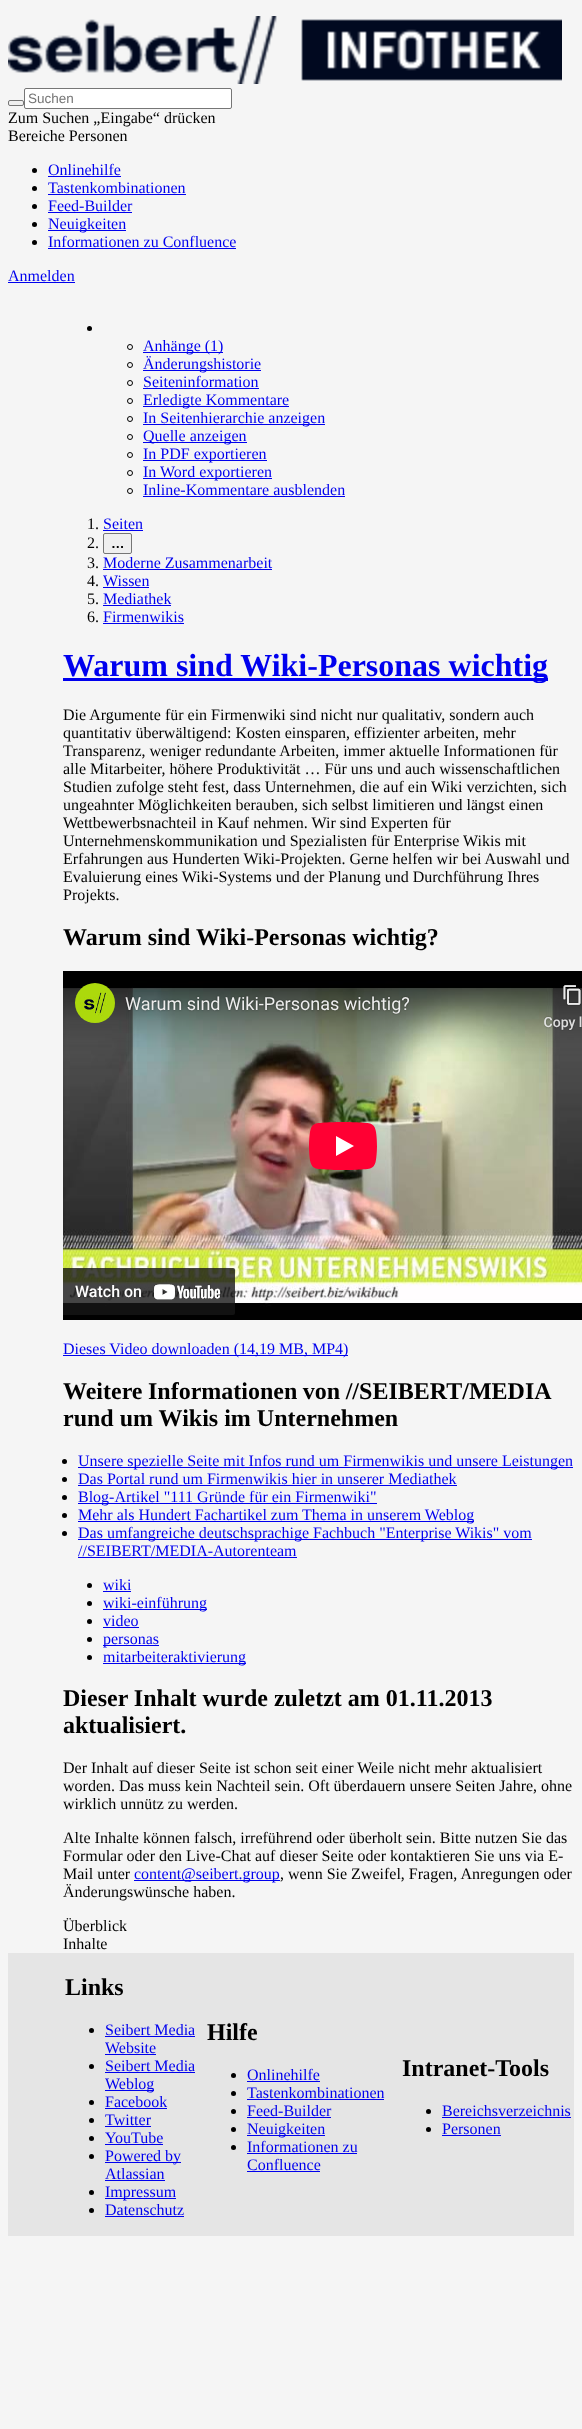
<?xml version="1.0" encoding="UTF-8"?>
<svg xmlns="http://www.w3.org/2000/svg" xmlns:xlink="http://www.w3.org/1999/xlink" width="582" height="2429">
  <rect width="100%" height="100%" fill="#f5f5f5" />
  <image x="8" y="16" width="554" height="68" xlink:href="image1.png" />
  <rect x="8.5" y="100.5" width="15" height="5" rx="1.5" fill="#efefef" stroke="#767676" />
  <rect x="24.5" y="88.5" width="207" height="20" rx="1.5" fill="#ffffff" stroke="#767676" />
  <circle cx="34.5" cy="170.5" r="2.5" fill="#000000" />
  <rect x="48" y="176" width="73" height="1" fill="#0000ee" />
  <circle cx="34.5" cy="188.5" r="2.5" fill="#000000" />
  <rect x="48" y="194" width="138" height="1" fill="#0000ee" />
  <circle cx="34.5" cy="206.5" r="2.5" fill="#000000" />
  <rect x="48" y="212" width="84" height="1" fill="#0000ee" />
  <circle cx="34.5" cy="224.5" r="2.5" fill="#000000" />
  <rect x="48" y="230" width="78" height="1" fill="#0000ee" />
  <circle cx="34.5" cy="242.5" r="2.5" fill="#000000" />
  <rect x="48" y="248" width="188" height="1" fill="#0000ee" />
  <rect x="8" y="282" width="67" height="1" fill="#0000ee" />
  <circle cx="89.5" cy="328.5" r="2.5" fill="#000000" />
  <circle cx="130" cy="347" r="2.5" fill="none" stroke="#000000" />
  <rect x="143" y="352" width="80" height="1" fill="#0000ee" />
  <circle cx="130" cy="365" r="2.5" fill="none" stroke="#000000" />
  <rect x="143" y="370" width="118" height="1" fill="#0000ee" />
  <circle cx="130" cy="383" r="2.5" fill="none" stroke="#000000" />
  <rect x="143" y="388" width="116" height="1" fill="#0000ee" />
  <circle cx="130" cy="401" r="2.5" fill="none" stroke="#000000" />
  <rect x="143" y="406" width="146" height="1" fill="#0000ee" />
  <circle cx="130" cy="419" r="2.5" fill="none" stroke="#000000" />
  <rect x="143" y="424" width="182" height="1" fill="#0000ee" />
  <circle cx="130" cy="437" r="2.5" fill="none" stroke="#000000" />
  <rect x="143" y="442" width="104" height="1" fill="#0000ee" />
  <circle cx="130" cy="455" r="2.5" fill="none" stroke="#000000" />
  <rect x="143" y="460" width="124" height="1" fill="#0000ee" />
  <circle cx="130" cy="473" r="2.5" fill="none" stroke="#000000" />
  <rect x="143" y="478" width="129" height="1" fill="#0000ee" />
  <circle cx="130" cy="491" r="2.5" fill="none" stroke="#000000" />
  <rect x="143" y="496" width="202" height="1" fill="#0000ee" />
  <rect x="103" y="530" width="40" height="1" fill="#0000ee" />
  <rect x="103.5" y="533.5" width="28" height="20" rx="1.5" fill="#efefef" stroke="#767676" />
  <rect x="103" y="569" width="169" height="1" fill="#0000ee" />
  <rect x="103" y="587" width="46" height="1" fill="#0000ee" />
  <rect x="103" y="605" width="68" height="1" fill="#0000ee" />
  <rect x="103" y="623" width="81" height="1" fill="#0000ee" />
  <rect x="63" y="678" width="485" height="3" fill="#0000ee" />
  <image x="63" y="971" width="519" height="349" xlink:href="image2.png" />
  <rect x="63" y="1355" width="285" height="1" fill="#0000ee" />
  <circle cx="64.5" cy="1461.5" r="2.5" fill="#000000" />
  <rect x="78" y="1467" width="495" height="1" fill="#0000ee" />
  <circle cx="64.5" cy="1479.5" r="2.5" fill="#000000" />
  <rect x="78" y="1485" width="379" height="1" fill="#0000ee" />
  <circle cx="64.5" cy="1497.5" r="2.5" fill="#000000" />
  <rect x="78" y="1503" width="299" height="1" fill="#0000ee" />
  <circle cx="64.5" cy="1515.5" r="2.5" fill="#000000" />
  <rect x="78" y="1521" width="396" height="1" fill="#0000ee" />
  <circle cx="64.5" cy="1533.5" r="2.5" fill="#000000" />
  <rect x="78" y="1539" width="454" height="1" fill="#0000ee" />
  <rect x="78" y="1557" width="219" height="1" fill="#0000ee" />
  <circle cx="89.5" cy="1585.5" r="2.5" fill="#000000" />
  <rect x="103" y="1591" width="28" height="1" fill="#0000ee" />
  <circle cx="89.5" cy="1603.5" r="2.5" fill="#000000" />
  <rect x="103" y="1609" width="104" height="1" fill="#0000ee" />
  <circle cx="89.5" cy="1621.5" r="2.5" fill="#000000" />
  <rect x="103" y="1627" width="36" height="1" fill="#0000ee" />
  <circle cx="89.5" cy="1639.5" r="2.5" fill="#000000" />
  <rect x="103" y="1645" width="56" height="1" fill="#0000ee" />
  <circle cx="89.5" cy="1657.5" r="2.5" fill="#000000" />
  <rect x="103" y="1663" width="143" height="1" fill="#0000ee" />
  <rect x="134" y="1880" width="146" height="1" fill="#0000ee" />
  <rect x="8" y="1953" width="566" height="283" fill="#e5e5e5" />
  <circle cx="91.5" cy="2030.5" r="2.5" fill="#000000" />
  <rect x="105" y="2036" width="90" height="1" fill="#0000ee" />
  <rect x="105" y="2054" width="51" height="1" fill="#0000ee" />
  <circle cx="91.5" cy="2066.5" r="2.5" fill="#000000" />
  <rect x="105" y="2072" width="90" height="1" fill="#0000ee" />
  <rect x="105" y="2090" width="49" height="1" fill="#0000ee" />
  <circle cx="91.5" cy="2102.5" r="2.5" fill="#000000" />
  <rect x="105" y="2108" width="62" height="1" fill="#0000ee" />
  <circle cx="91.5" cy="2120.5" r="2.5" fill="#000000" />
  <rect x="105" y="2126" width="46" height="1" fill="#0000ee" />
  <circle cx="91.5" cy="2138.5" r="2.5" fill="#000000" />
  <rect x="105" y="2144" width="58" height="1" fill="#0000ee" />
  <circle cx="91.5" cy="2156.5" r="2.5" fill="#000000" />
  <rect x="105" y="2162" width="76" height="1" fill="#0000ee" />
  <rect x="105" y="2180" width="60" height="1" fill="#0000ee" />
  <circle cx="91.5" cy="2192.5" r="2.5" fill="#000000" />
  <rect x="105" y="2198" width="71" height="1" fill="#0000ee" />
  <circle cx="91.5" cy="2210.5" r="2.5" fill="#000000" />
  <rect x="105" y="2216" width="79" height="1" fill="#0000ee" />
  <circle cx="233.5" cy="2075.5" r="2.5" fill="#000000" />
  <rect x="247" y="2081" width="73" height="1" fill="#0000ee" />
  <circle cx="233.5" cy="2093.5" r="2.5" fill="#000000" />
  <rect x="247" y="2099" width="137" height="1" fill="#0000ee" />
  <circle cx="233.5" cy="2111.5" r="2.5" fill="#000000" />
  <rect x="247" y="2117" width="84" height="1" fill="#0000ee" />
  <circle cx="233.5" cy="2129.5" r="2.5" fill="#000000" />
  <rect x="247" y="2135" width="78" height="1" fill="#0000ee" />
  <circle cx="233.5" cy="2147.5" r="2.5" fill="#000000" />
  <rect x="247" y="2153" width="110" height="1" fill="#0000ee" />
  <rect x="247" y="2171" width="73" height="1" fill="#0000ee" />
  <circle cx="428.5" cy="2111.5" r="2.5" fill="#000000" />
  <rect x="442" y="2117" width="129" height="1" fill="#0000ee" />
  <circle cx="428.5" cy="2129.5" r="2.5" fill="#000000" />
  <rect x="442" y="2135" width="59" height="1" fill="#0000ee" />
  <text x="28" y="103" style="font-family: Liberation Sans; font-size: 13.5px; fill: #757575">Suchen</text>
  <text x="8" y="123" style="font-family: Liberation Serif; font-size: 16px; fill: #000000">Zum Suchen „Eingabe“ drücken</text>
  <text x="8" y="141" style="font-family: Liberation Serif; font-size: 16px; fill: #000000">Bereiche Personen</text>
  <text x="48" y="175" style="font-family: Liberation Serif; font-size: 16px; fill: #0000ee">Onlinehilfe</text>
  <text x="48" y="193" style="font-family: Liberation Serif; font-size: 16px; fill: #0000ee">Tastenkombinationen</text>
  <text x="48" y="211" style="font-family: Liberation Serif; font-size: 16px; fill: #0000ee">Feed-Builder</text>
  <text x="48" y="229" style="font-family: Liberation Serif; font-size: 16px; fill: #0000ee">Neuigkeiten</text>
  <text x="48" y="247" style="font-family: Liberation Serif; font-size: 16px; fill: #0000ee">Informationen zu Confluence</text>
  <text x="8" y="281" style="font-family: Liberation Serif; font-size: 16px; fill: #0000ee">Anmelden</text>
  <text x="143" y="351" style="font-family: Liberation Serif; font-size: 16px; fill: #0000ee">Anhänge (1)</text>
  <text x="143" y="369" style="font-family: Liberation Serif; font-size: 16px; fill: #0000ee">Änderungshistorie</text>
  <text x="143" y="387" style="font-family: Liberation Serif; font-size: 16px; fill: #0000ee">Seiteninformation</text>
  <text x="143" y="405" style="font-family: Liberation Serif; font-size: 16px; fill: #0000ee">Erledigte Kommentare</text>
  <text x="143" y="423" style="font-family: Liberation Serif; font-size: 16px; fill: #0000ee">In Seitenhierarchie anzeigen</text>
  <text x="143" y="441" style="font-family: Liberation Serif; font-size: 16px; fill: #0000ee">Quelle anzeigen</text>
  <text x="143" y="459" style="font-family: Liberation Serif; font-size: 16px; fill: #0000ee">In PDF exportieren</text>
  <text x="143" y="477" style="font-family: Liberation Serif; font-size: 16px; fill: #0000ee">In Word exportieren</text>
  <text x="143" y="495" style="font-family: Liberation Serif; font-size: 16px; fill: #0000ee">Inline-Kommentare ausblenden</text>
  <text x="87" y="529" style="font-family: Liberation Serif; font-size: 16px; fill: #000000">1.</text>
  <text x="103" y="529" style="font-family: Liberation Serif; font-size: 16px; fill: #0000ee">Seiten</text>
  <text x="87" y="548" style="font-family: Liberation Serif; font-size: 16px; fill: #000000">2.</text>
  <text x="111" y="548" style="font-family: Liberation Sans; font-size: 13.5px; font-weight: bold; fill: #000000">…</text>
  <text x="87" y="568" style="font-family: Liberation Serif; font-size: 16px; fill: #000000">3.</text>
  <text x="103" y="568" style="font-family: Liberation Serif; font-size: 16px; fill: #0000ee">Moderne Zusammenarbeit</text>
  <text x="87" y="586" style="font-family: Liberation Serif; font-size: 16px; fill: #000000">4.</text>
  <text x="103" y="586" style="font-family: Liberation Serif; font-size: 16px; fill: #0000ee">Wissen</text>
  <text x="87" y="604" style="font-family: Liberation Serif; font-size: 16px; fill: #000000">5.</text>
  <text x="103" y="604" style="font-family: Liberation Serif; font-size: 16px; fill: #0000ee">Mediathek</text>
  <text x="87" y="622" style="font-family: Liberation Serif; font-size: 16px; fill: #000000">6.</text>
  <text x="103" y="622" style="font-family: Liberation Serif; font-size: 16px; fill: #0000ee">Firmenwikis</text>
  <text x="63" y="676" style="font-family: Liberation Serif; font-size: 32px; font-weight: bold; fill: #0000ee">Warum sind Wiki-Personas wichtig</text>
  <text x="63" y="720" style="font-family: Liberation Serif; font-size: 16px; fill: #000000">Die Argumente für ein Firmenwiki sind nicht nur qualitativ, sondern auch</text>
  <text x="63" y="738" style="font-family: Liberation Serif; font-size: 16px; fill: #000000">quantitativ überwältigend: Kosten einsparen, effizienter arbeiten, mehr</text>
  <text x="63" y="756" style="font-family: Liberation Serif; font-size: 16px; fill: #000000">Transparenz, weniger redundante Arbeiten, immer aktuelle Informationen für</text>
  <text x="63" y="774" style="font-family: Liberation Serif; font-size: 16px; fill: #000000">alle Mitarbeiter, höhere Produktivität … Für uns und auch wissenschaftlichen</text>
  <text x="63" y="792" style="font-family: Liberation Serif; font-size: 16px; fill: #000000">Studien zufolge steht fest, dass Unternehmen, die auf ein Wiki verzichten, sich</text>
  <text x="63" y="810" style="font-family: Liberation Serif; font-size: 16px; fill: #000000">ungeahnter Möglichkeiten berauben, sich selbst limitieren und längst einen</text>
  <text x="63" y="828" style="font-family: Liberation Serif; font-size: 16px; fill: #000000">Wettbewerbsnachteil in Kauf nehmen. Wir sind Experten für</text>
  <text x="63" y="846" style="font-family: Liberation Serif; font-size: 16px; fill: #000000">Unternehmenskommunikation und Spezialisten für Enterprise Wikis mit</text>
  <text x="63" y="864" style="font-family: Liberation Serif; font-size: 16px; fill: #000000">Erfahrungen aus Hunderten Wiki-Projekten. Gerne helfen wir bei Auswahl und</text>
  <text x="63" y="882" style="font-family: Liberation Serif; font-size: 16px; fill: #000000">Evaluierung eines Wiki-Systems und der Planung und Durchführung Ihres</text>
  <text x="63" y="900" style="font-family: Liberation Serif; font-size: 16px; fill: #000000">Projekts.</text>
  <text x="63" y="945" style="font-family: Liberation Serif; font-size: 24px; font-weight: bold; fill: #000000">Warum sind Wiki-Personas wichtig?</text>
  <text x="63" y="1354" style="font-family: Liberation Serif; font-size: 16px; fill: #0000ee">Dieses Video downloaden (14,19 MB, MP4)</text>
  <text x="63" y="1399" word-spacing="-0.5" style="font-family: Liberation Serif; font-size: 24px; font-weight: bold; fill: #000000">Weitere Informationen von //SEIBERT/MEDIA</text>
  <text x="63" y="1426" style="font-family: Liberation Serif; font-size: 24px; font-weight: bold; fill: #000000">rund um Wikis im Unternehmen</text>
  <text x="78" y="1466" style="font-family: Liberation Serif; font-size: 16px; fill: #0000ee">Unsere spezielle Seite mit Infos rund um Firmenwikis und unsere Leistungen</text>
  <text x="78" y="1484" style="font-family: Liberation Serif; font-size: 16px; fill: #0000ee">Das Portal rund um Firmenwikis hier in unserer Mediathek</text>
  <text x="78" y="1502" style="font-family: Liberation Serif; font-size: 16px; fill: #0000ee">Blog-Artikel "111 Gründe für ein Firmenwiki"</text>
  <text x="78" y="1520" style="font-family: Liberation Serif; font-size: 16px; fill: #0000ee">Mehr als Hundert Fachartikel zum Thema in unserem Weblog</text>
  <text x="78" y="1538" style="font-family: Liberation Serif; font-size: 16px; fill: #0000ee">Das umfangreiche deutschsprachige Fachbuch "Enterprise Wikis" vom</text>
  <text x="78" y="1556" style="font-family: Liberation Serif; font-size: 16px; fill: #0000ee">//SEIBERT/MEDIA-Autorenteam</text>
  <text x="103" y="1590" style="font-family: Liberation Serif; font-size: 16px; fill: #0000ee">wiki</text>
  <text x="103" y="1608" style="font-family: Liberation Serif; font-size: 16px; fill: #0000ee">wiki-einführung</text>
  <text x="103" y="1626" style="font-family: Liberation Serif; font-size: 16px; fill: #0000ee">video</text>
  <text x="103" y="1644" style="font-family: Liberation Serif; font-size: 16px; fill: #0000ee">personas</text>
  <text x="103" y="1662" style="font-family: Liberation Serif; font-size: 16px; fill: #0000ee">mitarbeiteraktivierung</text>
  <text x="63" y="1706" style="font-family: Liberation Serif; font-size: 24px; font-weight: bold; fill: #000000">Dieser Inhalt wurde zuletzt am 01.11.2013</text>
  <text x="63" y="1733" style="font-family: Liberation Serif; font-size: 24px; font-weight: bold; fill: #000000">aktualisiert.</text>
  <text x="63" y="1773" style="font-family: Liberation Serif; font-size: 16px; fill: #000000">Der Inhalt auf dieser Seite ist schon seit einer Weile nicht mehr aktualisiert</text>
  <text x="63" y="1791" style="font-family: Liberation Serif; font-size: 16px; fill: #000000">worden. Das muss kein Nachteil sein. Oft überdauern unsere Seiten Jahre, ohne</text>
  <text x="63" y="1809" style="font-family: Liberation Serif; font-size: 16px; fill: #000000">wirklich unnütz zu werden.</text>
  <text x="63" y="1843" style="font-family: Liberation Serif; font-size: 16px; fill: #000000">Alte Inhalte können falsch, irreführend oder überholt sein. Bitte nutzen Sie das</text>
  <text x="63" y="1861" style="font-family: Liberation Serif; font-size: 16px; fill: #000000">Formular oder den Live-Chat auf dieser Seite oder kontaktieren Sie uns via E-</text>
  <text x="63" y="1879" style="font-family: Liberation Serif; font-size: 16px; fill: #000000">Mail unter</text>
  <text x="134" y="1879" style="font-family: Liberation Serif; font-size: 16px; fill: #0000ee">content@seibert.group</text>
  <text x="280" y="1879" style="font-family: Liberation Serif; font-size: 16px; fill: #000000">, wenn Sie Zweifel, Fragen, Anregungen oder</text>
  <text x="63" y="1897" style="font-family: Liberation Serif; font-size: 16px; fill: #000000">Änderungswünsche haben.</text>
  <text x="63" y="1931" style="font-family: Liberation Serif; font-size: 16px; fill: #000000">Überblick</text>
  <text x="63" y="1949" style="font-family: Liberation Serif; font-size: 16px; fill: #000000">Inhalte</text>
  <text x="65" y="1995" style="font-family: Liberation Serif; font-size: 24px; font-weight: bold; fill: #000000">Links</text>
  <text x="105" y="2035" style="font-family: Liberation Serif; font-size: 16px; fill: #0000ee">Seibert Media</text>
  <text x="105" y="2053" style="font-family: Liberation Serif; font-size: 16px; fill: #0000ee">Website</text>
  <text x="105" y="2071" style="font-family: Liberation Serif; font-size: 16px; fill: #0000ee">Seibert Media</text>
  <text x="105" y="2089" style="font-family: Liberation Serif; font-size: 16px; fill: #0000ee">Weblog</text>
  <text x="105" y="2107" style="font-family: Liberation Serif; font-size: 16px; fill: #0000ee">Facebook</text>
  <text x="105" y="2125" style="font-family: Liberation Serif; font-size: 16px; fill: #0000ee">Twitter</text>
  <text x="105" y="2143" style="font-family: Liberation Serif; font-size: 16px; fill: #0000ee">YouTube</text>
  <text x="105" y="2161" style="font-family: Liberation Serif; font-size: 16px; fill: #0000ee">Powered by</text>
  <text x="105" y="2179" style="font-family: Liberation Serif; font-size: 16px; fill: #0000ee">Atlassian</text>
  <text x="105" y="2197" style="font-family: Liberation Serif; font-size: 16px; fill: #0000ee">Impressum</text>
  <text x="105" y="2215" style="font-family: Liberation Serif; font-size: 16px; fill: #0000ee">Datenschutz</text>
  <text x="207" y="2040" style="font-family: Liberation Serif; font-size: 24px; font-weight: bold; fill: #000000">Hilfe</text>
  <text x="247" y="2080" style="font-family: Liberation Serif; font-size: 16px; fill: #0000ee">Onlinehilfe</text>
  <text x="247" y="2098" style="font-family: Liberation Serif; font-size: 16px; fill: #0000ee">Tastenkombinationen</text>
  <text x="247" y="2116" style="font-family: Liberation Serif; font-size: 16px; fill: #0000ee">Feed-Builder</text>
  <text x="247" y="2134" style="font-family: Liberation Serif; font-size: 16px; fill: #0000ee">Neuigkeiten</text>
  <text x="247" y="2152" style="font-family: Liberation Serif; font-size: 16px; fill: #0000ee">Informationen zu</text>
  <text x="247" y="2170" style="font-family: Liberation Serif; font-size: 16px; fill: #0000ee">Confluence</text>
  <text x="402" y="2076" style="font-family: Liberation Serif; font-size: 24px; font-weight: bold; fill: #000000">Intranet-Tools</text>
  <text x="442" y="2116" style="font-family: Liberation Serif; font-size: 16px; fill: #0000ee">Bereichsverzeichnis</text>
  <text x="442" y="2134" style="font-family: Liberation Serif; font-size: 16px; fill: #0000ee">Personen</text>
</svg>
